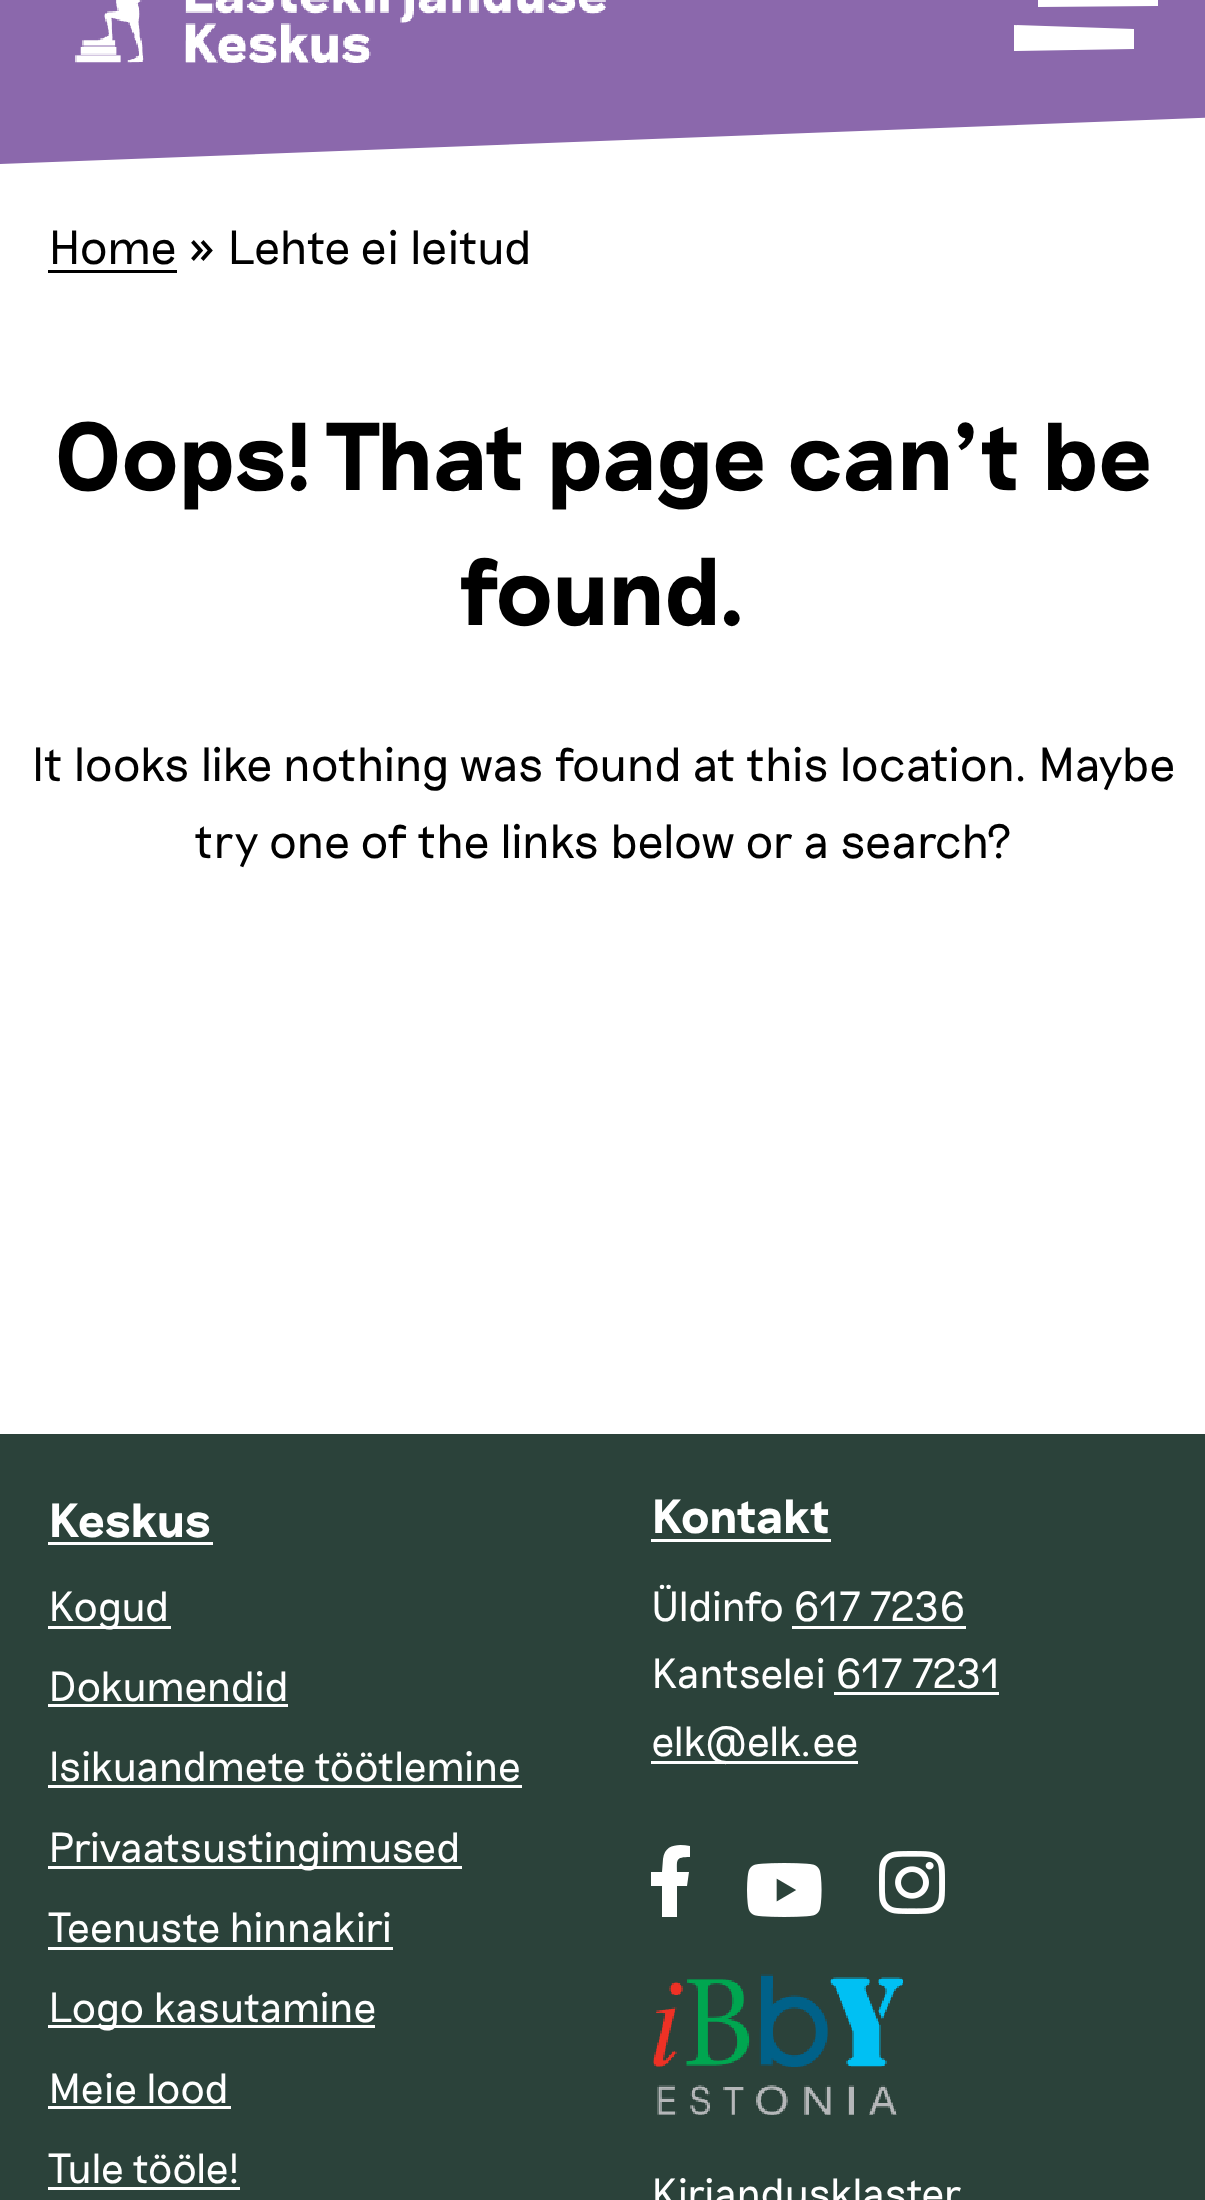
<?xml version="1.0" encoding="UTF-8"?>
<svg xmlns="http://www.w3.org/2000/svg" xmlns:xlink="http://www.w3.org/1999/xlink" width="1205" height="2200">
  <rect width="100%" height="100%" fill="#ffffff" />
  <path d="M 0 -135 h 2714 v 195 l -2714 104 z" fill="#8b68ac" />
  <image x="75" y="0" width="531" height="63" xlink:href="image1.png" />
  <path d="M 1038 -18 l 120 -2 v 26 l -120 1 z" fill="#ffffff" />
  <path d="M 1014 51 v -26 l 120 4 v 20 z" fill="#ffffff" />
  <rect x="48" y="270" width="129" height="3" fill="#000000" />
  <rect y="1434" width="1205" height="766" fill="#2b423a" />
  <rect x="48" y="1542" width="165" height="3" fill="#ffffff" />
  <rect x="48" y="1626" width="123" height="3" fill="#ffffff" />
  <rect x="48" y="1704" width="240" height="3" fill="#ffffff" />
  <rect x="48" y="1785" width="474" height="3" fill="#ffffff" />
  <rect x="48" y="1866" width="414" height="3" fill="#ffffff" />
  <rect x="48" y="1947" width="345" height="3" fill="#ffffff" />
  <rect x="48" y="2025" width="327" height="3" fill="#ffffff" />
  <rect x="48" y="2106" width="183" height="3" fill="#ffffff" />
  <rect x="48" y="2187" width="192" height="3" fill="#ffffff" />
  <rect x="651" y="1539" width="180" height="3" fill="#ffffff" />
  <rect x="792" y="1626" width="174" height="3" fill="#ffffff" />
  <rect x="834" y="1692" width="165" height="3" fill="#ffffff" />
  <rect x="651" y="1761" width="207" height="3" fill="#ffffff" />
  <path d="M 687 1886 l 2 -14 h -12 c 0 -12 -2 -15 13 -15 v -11 c -12 -2 -25 -2 -27 13 l -1 13 h -11 v 14 h 11 v 31 h 15 v -31 z" fill="#ffffff" />
  <image x="747" y="1863" width="75" height="54" xlink:href="image2.png" />
  <image x="879" y="1851" width="67" height="63" xlink:href="image3.png" />
  <image x="653" y="1974" width="250" height="141" xlink:href="image4.png" />
  <text x="48" y="264" style="font-family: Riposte; font-size: 48px; font-weight: 300; fill: #000000">Home » Lehte ei leitud</text>
  <text x="54" y="490" style="font-family: Riposte; font-size: 96px; font-weight: bold; fill: #000000">Oops! That page can’t be</text>
  <text x="457" y="625" style="font-family: Riposte; font-size: 96px; font-weight: bold; fill: #000000">found.</text>
  <text x="31" y="781" style="font-family: Riposte; font-size: 48px; font-weight: 300; fill: #000000">It looks like nothing was found at this location. Maybe</text>
  <text x="194" y="858" style="font-family: Riposte; font-size: 48px; font-weight: 300; fill: #000000">try one of the links below or a search?</text>
  <text x="48" y="1537" style="font-family: Riposte; font-size: 48px; font-weight: bold; fill: #ffffff">Keskus</text>
  <text x="48" y="1621" style="font-family: Riposte; font-size: 42px; font-weight: 300; fill: #ffffff">Kogud</text>
  <text x="48" y="1701" style="font-family: Riposte; font-size: 42px; font-weight: 300; fill: #ffffff">Dokumendid</text>
  <text x="48" y="1781" style="font-family: Riposte; font-size: 42px; font-weight: 300; fill: #ffffff">Isikuandmete töötlemine</text>
  <text x="48" y="1862" style="font-family: Riposte; font-size: 42px; font-weight: 300; fill: #ffffff">Privaatsustingimused</text>
  <text x="48" y="1942" style="font-family: Riposte; font-size: 42px; font-weight: 300; fill: #ffffff">Teenuste hinnakiri</text>
  <text x="48" y="2022" style="font-family: Riposte; font-size: 42px; font-weight: 300; fill: #ffffff">Logo kasutamine</text>
  <text x="48" y="2103" style="font-family: Riposte; font-size: 42px; font-weight: 300; fill: #ffffff">Meie lood</text>
  <text x="48" y="2183" style="font-family: Riposte; font-size: 42px; font-weight: 300; fill: #ffffff">Tule tööle!</text>
  <text x="651" y="1533" style="font-family: Riposte; font-size: 48px; font-weight: bold; fill: #ffffff">Kontakt</text>
  <text x="651" y="1621" style="font-family: Riposte; font-size: 42px; font-weight: 300; fill: #ffffff">Üldinfo 617 7236</text>
  <text x="651" y="1688" style="font-family: Riposte; font-size: 42px; font-weight: 300; fill: #ffffff">Kantselei 617 7231</text>
  <text x="651" y="1756" style="font-family: Riposte; font-size: 42px; font-weight: 300; fill: #ffffff">elk@elk.ee</text>
  <text x="651" y="2208" style="font-family: Riposte; font-size: 42px; font-weight: 300; fill: #ffffff">Kirjandusklaster</text>
</svg>
